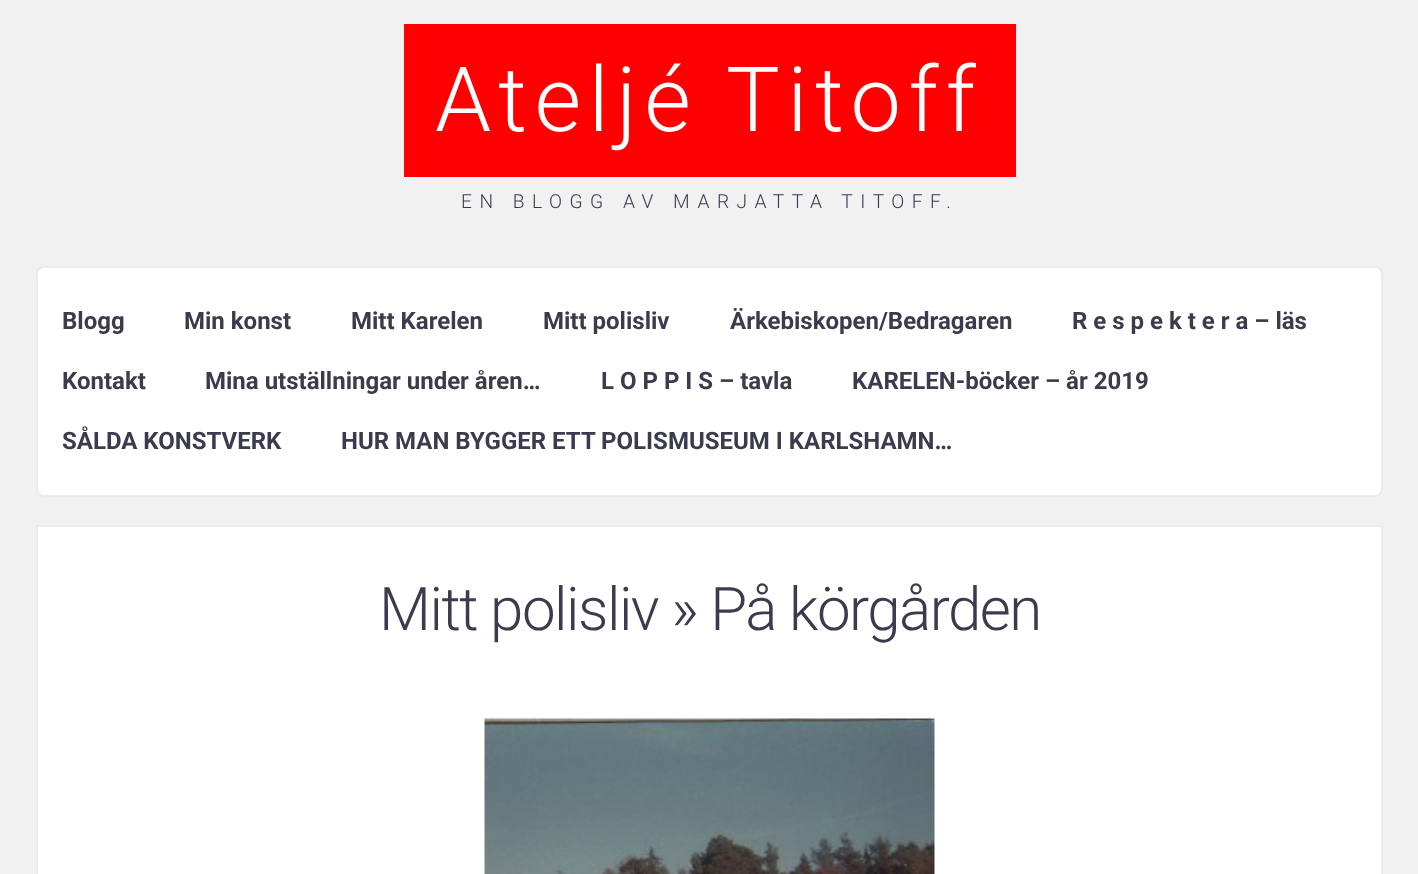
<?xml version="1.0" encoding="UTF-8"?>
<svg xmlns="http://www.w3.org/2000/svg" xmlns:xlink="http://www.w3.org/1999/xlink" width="1418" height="874">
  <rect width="100%" height="100%" fill="#f1f1f1" />
  <rect x="404" y="24" width="612" height="153" fill="#ff0000" />
  <rect x="37" y="267" width="1345" height="229" rx="7" fill="#ffffff" stroke="#ebebeb" stroke-width="2" />
  <rect x="37" y="526" width="1345" height="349" fill="#ffffff" stroke="#ebebeb" stroke-width="2" />
  <image x="484" y="718" width="451" height="156" xlink:href="image1.png" />
  <text x="435" y="131" style="font-family: Roboto; font-size: 90px; font-weight: 300; letter-spacing: 7.5px; fill: #ffffff">Ateljé Titoff</text>
  <text x="461" y="208" style="font-family: Roboto; font-size: 19.2px; font-weight: 300; letter-spacing: 7.5px; fill: #3b3b4d">EN BLOGG AV MARJATTA TITOFF.</text>
  <text x="62" y="329" style="font-family: Roboto; font-size: 24px; font-weight: bold; fill: #3b3b4d">Blogg</text>
  <text x="184" y="329" style="font-family: Roboto; font-size: 24px; font-weight: bold; fill: #3b3b4d">Min konst</text>
  <text x="351" y="329" style="font-family: Roboto; font-size: 24px; font-weight: bold; fill: #3b3b4d">Mitt Karelen</text>
  <text x="543" y="329" style="font-family: Roboto; font-size: 24px; font-weight: bold; fill: #3b3b4d">Mitt polisliv</text>
  <text x="730" y="329" style="font-family: Roboto; font-size: 24px; font-weight: bold; fill: #3b3b4d">Ärkebiskopen/Bedragaren</text>
  <text x="1072" y="329" style="font-family: Roboto; font-size: 24px; font-weight: bold; fill: #3b3b4d">R e s p e k t e r a – läs</text>
  <text x="62" y="389" style="font-family: Roboto; font-size: 24px; font-weight: bold; fill: #3b3b4d">Kontakt</text>
  <text x="205" y="389" style="font-family: Roboto; font-size: 24px; font-weight: bold; fill: #3b3b4d">Mina utställningar under åren…</text>
  <text x="601" y="389" style="font-family: Roboto; font-size: 24px; font-weight: bold; fill: #3b3b4d">L O P P I S – tavla</text>
  <text x="852" y="389" style="font-family: Roboto; font-size: 24px; font-weight: bold; fill: #3b3b4d">KARELEN-böcker – år 2019</text>
  <text x="62" y="449" style="font-family: Roboto; font-size: 24px; font-weight: bold; fill: #3b3b4d">SÅLDA KONSTVERK</text>
  <text x="341" y="449" style="font-family: Roboto; font-size: 24px; font-weight: bold; fill: #3b3b4d">HUR MAN BYGGER ETT POLISMUSEUM I KARLSHAMN…</text>
  <text x="379" y="630" style="font-family: Roboto; font-size: 60px; font-weight: 300; letter-spacing: -1.5px; fill: #3b3b4d">Mitt polisliv » På körgården</text>
</svg>
